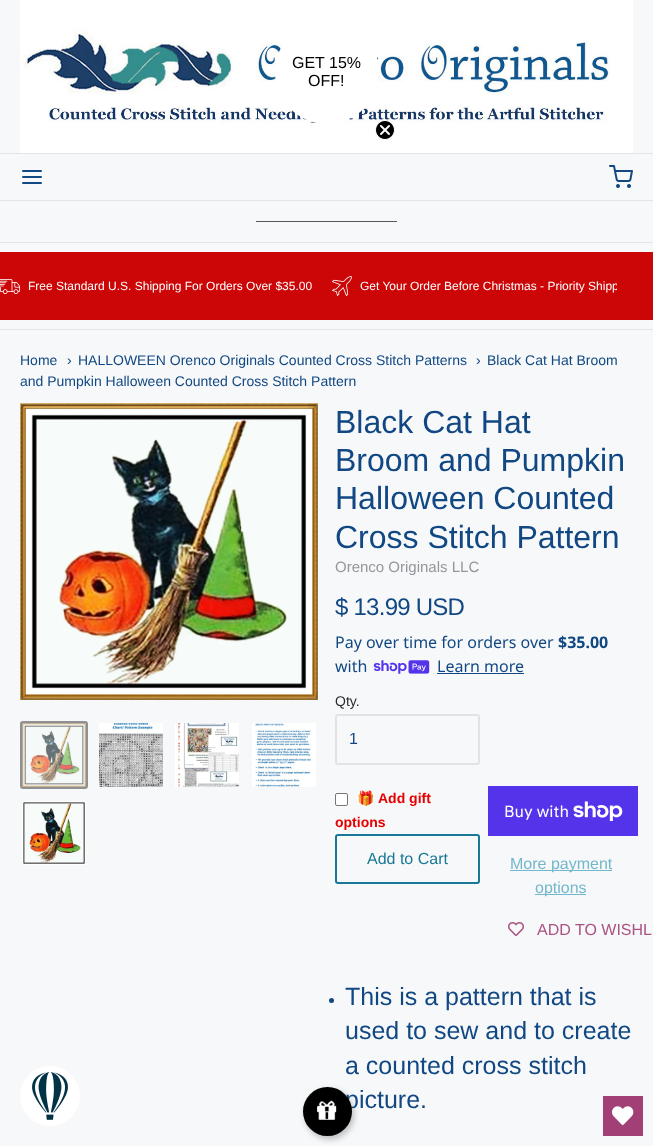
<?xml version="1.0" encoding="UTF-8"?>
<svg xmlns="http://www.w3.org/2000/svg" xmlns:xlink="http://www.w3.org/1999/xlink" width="653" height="1146">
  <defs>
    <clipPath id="clip1"><rect y="276" width="617" height="20" /></clipPath>
  </defs>
  <rect width="100%" height="100%" fill="#f7f8f9" />
  <rect y="153" width="653" height="1" fill="#e3e4e5" />
  <image x="20" y="0" width="613" height="153" xlink:href="image1.png" />
  <circle cx="327" cy="72" r="52" fill="#ffffff" />
  <image x="375" y="120" width="20" height="20" xlink:href="image2.png" />
  <rect y="200" width="653" height="1" fill="#e3e4e5" />
  <path d="M 23 177 h 18 m -18 -6 h 18 m -18 12 h 18" fill="none" stroke="#114883" stroke-width="2" stroke-linecap="round" stroke-linejoin="round" />
  <image x="609" y="165" width="24" height="23" xlink:href="image3.png" />
  <rect y="242" width="653" height="1" fill="#e3e4e5" />
  <rect x="256" y="221" width="141" height="1" fill="#565656" />
  <rect y="329" width="653" height="1" fill="#e3e4e5" />
  <rect y="252" width="653" height="68" fill="#cc0606" />
  <image x="0" y="279" width="20" height="15" xlink:href="image4.png" />
  <image x="332" y="276" width="20" height="20" xlink:href="image5.png" />
  <image x="20" y="403" width="298" height="297" xlink:href="image6.png" />
  <rect x="21" y="722" width="66" height="66" rx="2" fill="#f3f5f6" stroke="#8e9093" stroke-width="2" />
  <image x="22" y="723" width="64" height="64" xlink:href="image7.png" />
  <image x="99" y="723" width="64" height="64" xlink:href="image8.png" />
  <image x="175" y="723" width="64" height="64" xlink:href="image9.png" />
  <image x="252" y="723" width="64" height="64" xlink:href="image10.png" />
  <image x="22" y="801" width="64" height="64" xlink:href="image11.png" />
  <image x="373" y="660" width="57" height="14" xlink:href="image12.png" />
  <rect x="437" y="673" width="87" height="1" fill="#114883" />
  <rect x="336" y="715" width="143" height="49" rx="2" fill="none" stroke="#e1e3e4" stroke-width="2" />
  <rect x="335.5" y="793.5" width="12" height="12" rx="1.5" fill="#ffffff" stroke="#767676" />
  <rect x="336" y="835" width="143" height="48" rx="2" fill="none" stroke="#187895" stroke-width="2" />
  <rect x="488" y="786" width="150" height="50" fill="#5433eb" />
  <image x="573" y="801" width="50" height="20" xlink:href="image13.png" />
  <rect x="510" y="870" width="102" height="1" fill="#73b7cc" />
  <rect x="535" y="894" width="51" height="1" fill="#73b7cc" />
  <image x="508" y="922" width="16" height="14" xlink:href="image14.png" />
  <circle cx="331.5" cy="1000.5" r="2.5" fill="#114883" />
  <circle cx="50" cy="1096" r="30" fill="#ffffff" />
  <image x="32" y="1072" width="36" height="48" xlink:href="image15.png" />
  <rect x="305" y="1090" width="49" height="49" rx="24.5" fill="#000000" fill-opacity="0.25" filter="blur(3px)" />
  <rect x="603" y="1096" width="40" height="40" fill="#a33f77" />
  <image x="612" y="1106" width="22" height="19" xlink:href="image17.png" />
  <text x="292" y="68" style="font-family: Liberation Sans; font-size: 16px; fill: #000000">GET 15%</text>
  <text x="308" y="86" style="font-family: Liberation Sans; font-size: 16px; fill: #000000">OFF!</text>
  <text x="28" y="290" style="font-family: Liberation Sans; font-size: 12px; fill: #ffffff">Free Standard U.S. Shipping For Orders Over $35.00</text>
  <g clip-path="url(#clip1)">
    <text x="360" y="290" style="font-family: Liberation Sans; font-size: 12px; fill: #ffffff">Get Your Order Before Christmas - Priority Shipp</text>
  </g>
  <text x="20" y="365" style="font-family: Liberation Sans; font-size: 14px; fill: #114883">Home</text>
  <text x="67" y="365" style="font-family: Liberation Sans; font-size: 14px; fill: #114883">›</text>
  <text x="78" y="365" style="font-family: Liberation Sans; font-size: 14px; fill: #114883">HALLOWEEN Orenco Originals Counted Cross Stitch Patterns</text>
  <text x="476" y="365" style="font-family: Liberation Sans; font-size: 14px; fill: #114883">›</text>
  <text x="487" y="365" style="font-family: Liberation Sans; font-size: 14px; fill: #114883">Black Cat Hat Broom</text>
  <text x="20" y="386" style="font-family: Liberation Sans; font-size: 14px; fill: #114883">and Pumpkin Halloween Counted Cross Stitch Pattern</text>
  <text x="335" y="433" style="font-family: Liberation Sans; font-size: 32px; fill: #114883">Black Cat Hat</text>
  <text x="335" y="471" style="font-family: Liberation Sans; font-size: 32px; fill: #114883">Broom and Pumpkin</text>
  <text x="335" y="509" style="font-family: Liberation Sans; font-size: 32px; fill: #114883">Halloween Counted</text>
  <text x="335" y="548" style="font-family: Liberation Sans; font-size: 32px; fill: #114883">Cross Stitch Pattern</text>
  <text x="335" y="572" style="font-family: Liberation Sans; font-size: 15px; fill: #93979d">Orenco Originals LLC</text>
  <text x="335" y="615" style="font-family: Liberation Sans; font-size: 24px; letter-spacing: -0.75px; fill: #114883">$ 13.99 USD</text>
  <text x="335" y="648" style="font-family: Noto Sans; font-size: 16px; fill: #114883">Pay over time for orders over</text>
  <text x="558" y="648" style="font-family: Noto Sans; font-size: 16px; font-weight: bold; fill: #114883">$35.00</text>
  <text x="335" y="672" style="font-family: Noto Sans; font-size: 16px; fill: #114883">with</text>
  <text x="437" y="672" style="font-family: Noto Sans; font-size: 16px; fill: #114883">Learn more</text>
  <text x="335" y="706" style="font-family: Liberation Sans; font-size: 14px; fill: #2a2b2b">Qty.</text>
  <text x="349" y="744" style="font-family: Liberation Sans; font-size: 16px; fill: #114883">1</text>
  <text x="357" y="803" style="font-family: Noto Color Emoji; font-size: 14px; font-weight: bold; fill: #e60000">🎁</text>
  <text x="378" y="803" style="font-family: Liberation Sans; font-size: 14px; font-weight: bold; fill: #e60000">Add gift</text>
  <text x="335" y="827" style="font-family: Liberation Sans; font-size: 14px; font-weight: bold; fill: #e60000">options</text>
  <text x="367" y="864" style="font-family: Liberation Sans; font-size: 16px; fill: #187895">Add to Cart</text>
  <text x="504" y="817" style="font-family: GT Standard; font-size: 16px; fill: #ffffff">Buy with</text>
  <text x="510" y="869" style="font-family: Liberation Sans; font-size: 16px; fill: #73b7cc">More payment</text>
  <text x="535" y="893" style="font-family: Liberation Sans; font-size: 16px; fill: #73b7cc">options</text>
  <text x="537" y="935" style="font-family: Liberation Sans; font-size: 16px; fill: #ab5284">ADD TO WISHL</text>
  <text x="345" y="1005" style="font-family: Liberation Sans; font-size: 25px; fill: #114883">This is a pattern that is</text>
  <text x="345" y="1039" style="font-family: Liberation Sans; font-size: 25px; fill: #114883">used to sew and to create</text>
  <text x="345" y="1074" style="font-family: Liberation Sans; font-size: 25px; fill: #114883">a counted cross stitch</text>
  <text x="345" y="1108" style="font-family: Liberation Sans; font-size: 25px; fill: #114883">picture.</text>
  <circle cx="327.5" cy="1111.5" r="24.5" fill="#000000" />
  <image x="317" y="1100" width="20" height="20" xlink:href="image16.png" />
</svg>
